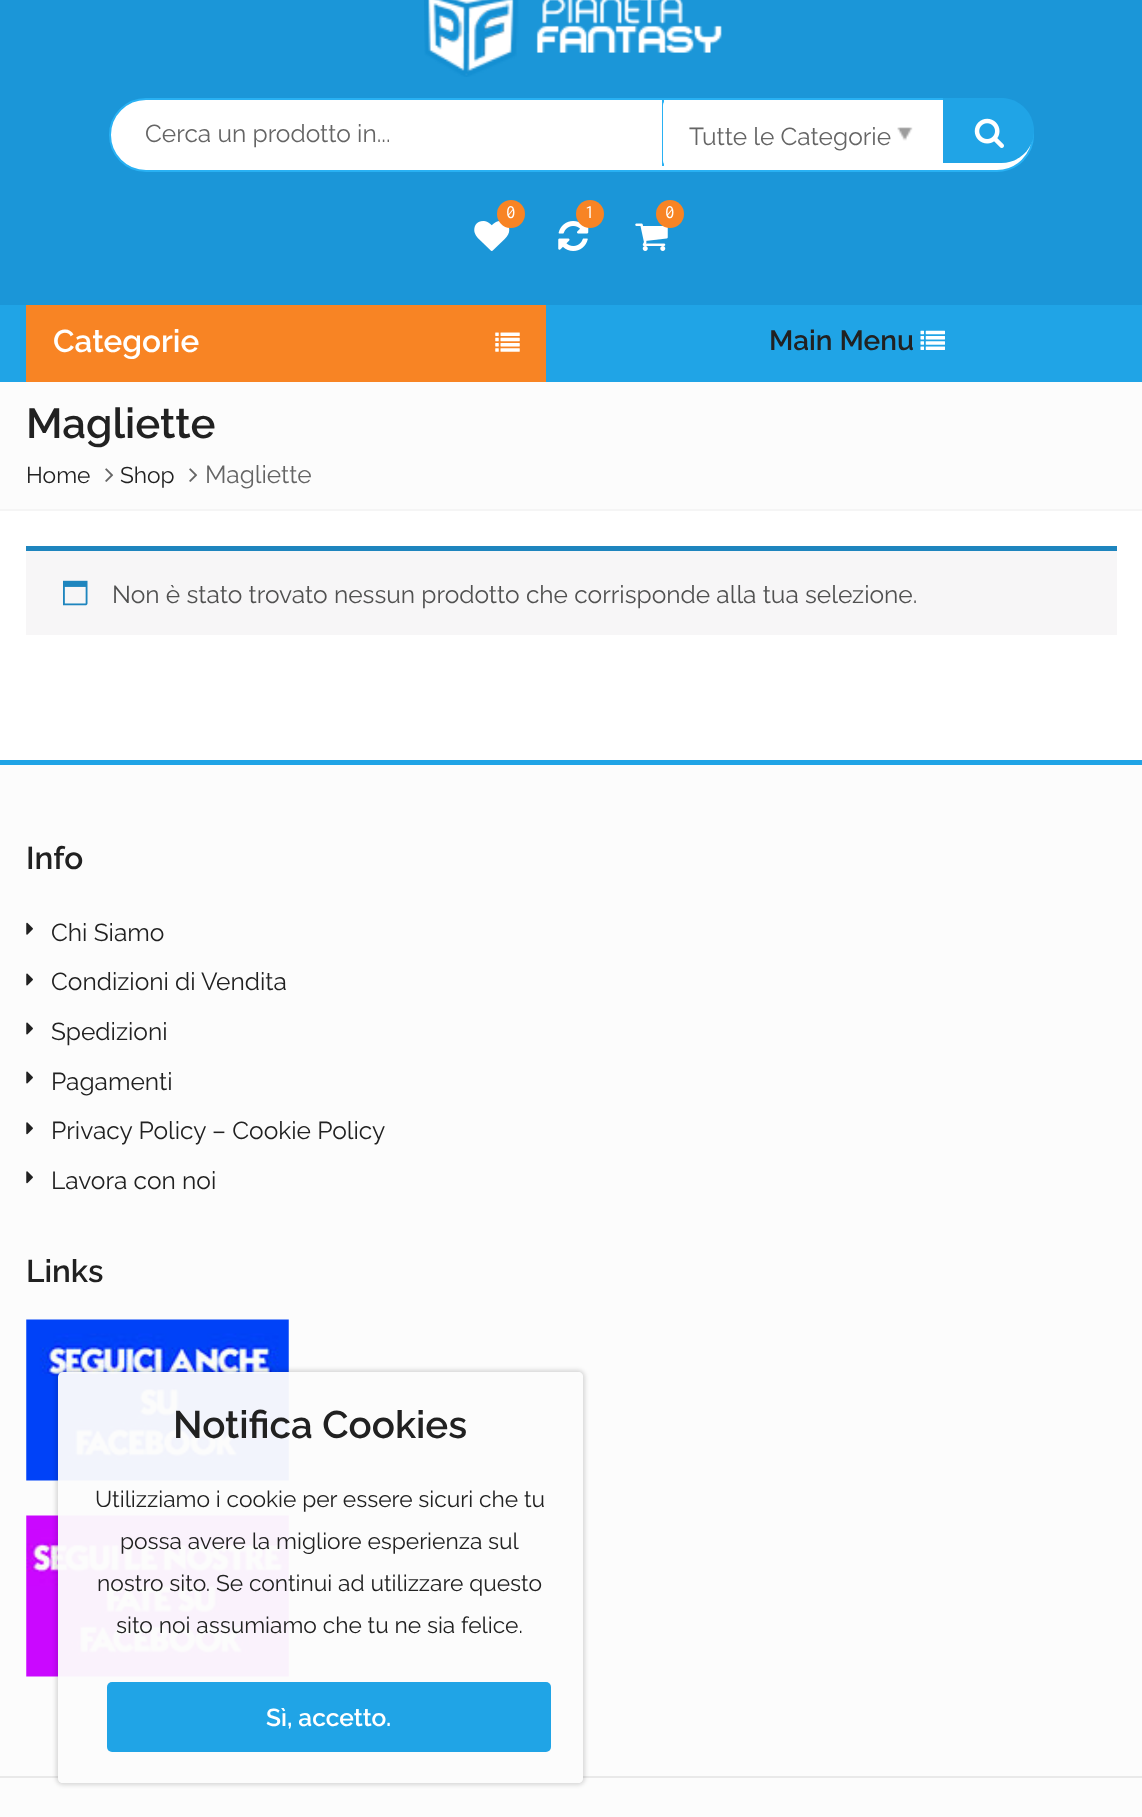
<?xml version="1.0" encoding="UTF-8"?>
<svg xmlns="http://www.w3.org/2000/svg" xmlns:xlink="http://www.w3.org/1999/xlink" width="1142" height="1817">
  <defs>
    <clipPath id="clip1"><path d="M 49 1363 h 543 v 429 h -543 z m 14 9 h 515 c 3 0 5 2 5 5 v 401 c 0 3 -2 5 -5 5 h -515 c -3 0 -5 -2 -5 -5 v -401 c 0 -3 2 -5 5 -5 z" clip-rule="evenodd" /></clipPath>
  </defs>
  <rect width="100%" height="100%" fill="#ffffff" />
  <rect width="1142" height="305" fill="#1b96d8" />
  <image x="424" y="0" width="298" height="77" xlink:href="image1.png" />
  <rect x="110" y="99" width="923" height="72" rx="36" fill="#ffffff" stroke="#29b1f3" stroke-width="2" />
  <rect x="662" y="100" width="2" height="66" fill="#29b1f3" />
  <rect x="663" y="100" width="263" height="66" rx="5" fill="#ffffff" />
  <image x="897" y="127" width="16" height="14" xlink:href="image2.png" />
  <path d="M 943 98 h 58.5 c 18 0 32.5 14.5 32.5 32.5 c 0 18 -14.5 32.5 -32.5 32.5 h -58.5 z" fill="#20a4e6" />
  <image x="974" y="118" width="30" height="30" xlink:href="image3.png" />
  <image x="474" y="221" width="36" height="30" xlink:href="image4.png" />
  <circle cx="511" cy="214" r="14" fill="#f88424" />
  <image x="558" y="221" width="31" height="30" xlink:href="image5.png" />
  <circle cx="590" cy="214" r="14" fill="#f88424" />
  <image x="635" y="223" width="33" height="28" xlink:href="image6.png" />
  <circle cx="670" cy="214" r="14" fill="#f88424" />
  <rect y="305" width="1142" height="77" fill="#20a4e6" />
  <rect x="26" y="305" width="520" height="77" fill="#f88424" />
  <image x="495" y="332" width="25" height="20" xlink:href="image7.png" />
  <image x="920" y="330" width="25" height="20" xlink:href="image8.png" />
  <rect y="382" width="1142" height="127" fill="#fcfcfc" />
  <rect y="509" width="1142" height="2" fill="#f5f5f5" />
  <image x="105" y="468" width="9" height="14" xlink:href="image9.png" />
  <image x="189" y="468" width="9" height="14" xlink:href="image9.png" />
  <rect x="26" y="551" width="1091" height="84" fill="#f7f6f7" />
  <rect x="26" y="546" width="1091" height="5" fill="#1e85be" />
  <image x="63" y="580" width="25" height="26" xlink:href="image10.png" />
  <rect y="760" width="1142" height="5" fill="#20a4e6" />
  <rect y="765" width="1142" height="1011" fill="#fcfcfc" />
  <rect y="1776" width="1142" height="2" fill="#e9e9e9" />
  <image x="26" y="922" width="7" height="13" xlink:href="image11.png" />
  <image x="26" y="973" width="7" height="13" xlink:href="image12.png" />
  <image x="26" y="1022" width="7" height="13" xlink:href="image12.png" />
  <image x="26" y="1071" width="7" height="13" xlink:href="image12.png" />
  <image x="26" y="1122" width="7" height="13" xlink:href="image13.png" />
  <image x="26" y="1171" width="7" height="13" xlink:href="image13.png" />
  <image x="26" y="1319" width="263" height="162" xlink:href="image14.png" />
  <image x="26" y="1515" width="263" height="162" xlink:href="image15.png" />
  <rect y="1778" width="1142" height="39" fill="#fcfcfc" />
  <g clip-path="url(#clip1)">
    <rect x="56" y="1370" width="529" height="415" rx="7" fill="#000000" fill-opacity="0.15" filter="blur(2px)" />
  </g>
  <rect x="58" y="1372" width="525" height="411" rx="5" fill="#fcfcfc" fill-opacity="0.96" />
  <rect x="107" y="1682" width="444" height="70" rx="5" fill="#20a4e6" />
  <text x="145" y="142" style="font-family: Raleway; font-size: 24.5px; fill: #656565">Cerca un prodotto in...</text>
  <text x="689" y="145" style="font-family: Raleway; font-size: 24.5px; fill: #656565">Tutte le Categorie</text>
  <text x="506" y="218" style="font-family: Inconsolata; font-size: 19px; fill: #ffffff">0</text>
  <text x="585" y="218" style="font-family: Inconsolata; font-size: 19px; fill: #ffffff">1</text>
  <text x="665" y="218" style="font-family: Inconsolata; font-size: 19px; fill: #ffffff">0</text>
  <text x="53" y="352" style="font-family: Raleway; font-size: 31.5px; font-weight: 600; fill: #ffffff">Categorie</text>
  <text x="769" y="350" style="font-family: Raleway; font-size: 28px; font-weight: 600; fill: #212121">Main Menu</text>
  <text x="26" y="438" style="font-family: Raleway; font-size: 42px; font-weight: 600; fill: #212121">Magliette</text>
  <text x="26" y="483" style="font-family: Raleway; font-size: 22.75px; fill: #212121">Home</text>
  <text x="120" y="483" style="font-family: Raleway; font-size: 22.75px; fill: #212121">Shop</text>
  <text x="205" y="483" style="font-family: Raleway; font-size: 24.5px; fill: #656565">Magliette</text>
  <text x="112" y="603" style="font-family: Raleway; font-size: 24.5px; fill: #515151">Non è stato trovato nessun prodotto che corrisponde alla tua selezione.</text>
  <text x="26" y="869" style="font-family: Raleway; font-size: 31.5px; font-weight: 600; fill: #212121">Info</text>
  <text x="51" y="941" style="font-family: Raleway; font-size: 24.5px; fill: #212121">Chi Siamo</text>
  <text x="51" y="990" style="font-family: Raleway; font-size: 24.5px; fill: #212121">Condizioni di Vendita</text>
  <text x="51" y="1040" style="font-family: Raleway; font-size: 24.5px; fill: #212121">Spedizioni</text>
  <text x="51" y="1090" style="font-family: Raleway; font-size: 24.5px; fill: #212121">Pagamenti</text>
  <text x="51" y="1139" style="font-family: Raleway; font-size: 24.5px; fill: #212121">Privacy Policy – Cookie Policy</text>
  <text x="51" y="1189" style="font-family: Raleway; font-size: 24.5px; fill: #212121">Lavora con noi</text>
  <text x="26" y="1282" style="font-family: Raleway; font-size: 31.5px; font-weight: 600; fill: #212121">Links</text>
  <text x="173" y="1438" style="font-family: Raleway; font-size: 38.5px; font-weight: 600; fill: #212121">Notifica Cookies</text>
  <text x="95" y="1507" style="font-family: Raleway; font-size: 22.75px; fill: #212121">Utilizziamo i cookie per essere sicuri che tu</text>
  <text x="120" y="1549" style="font-family: Raleway; font-size: 22.75px; fill: #212121">possa avere la migliore esperienza sul</text>
  <text x="97" y="1591" style="font-family: Raleway; font-size: 22.75px; fill: #212121">nostro sito. Se continui ad utilizzare questo</text>
  <text x="116" y="1633" style="font-family: Raleway; font-size: 22.75px; fill: #212121">sito noi assumiamo che tu ne sia felice.</text>
  <text x="266" y="1726" style="font-family: Raleway; font-size: 24.5px; font-weight: 600; fill: #ffffff">Sì, accetto.</text>
</svg>
